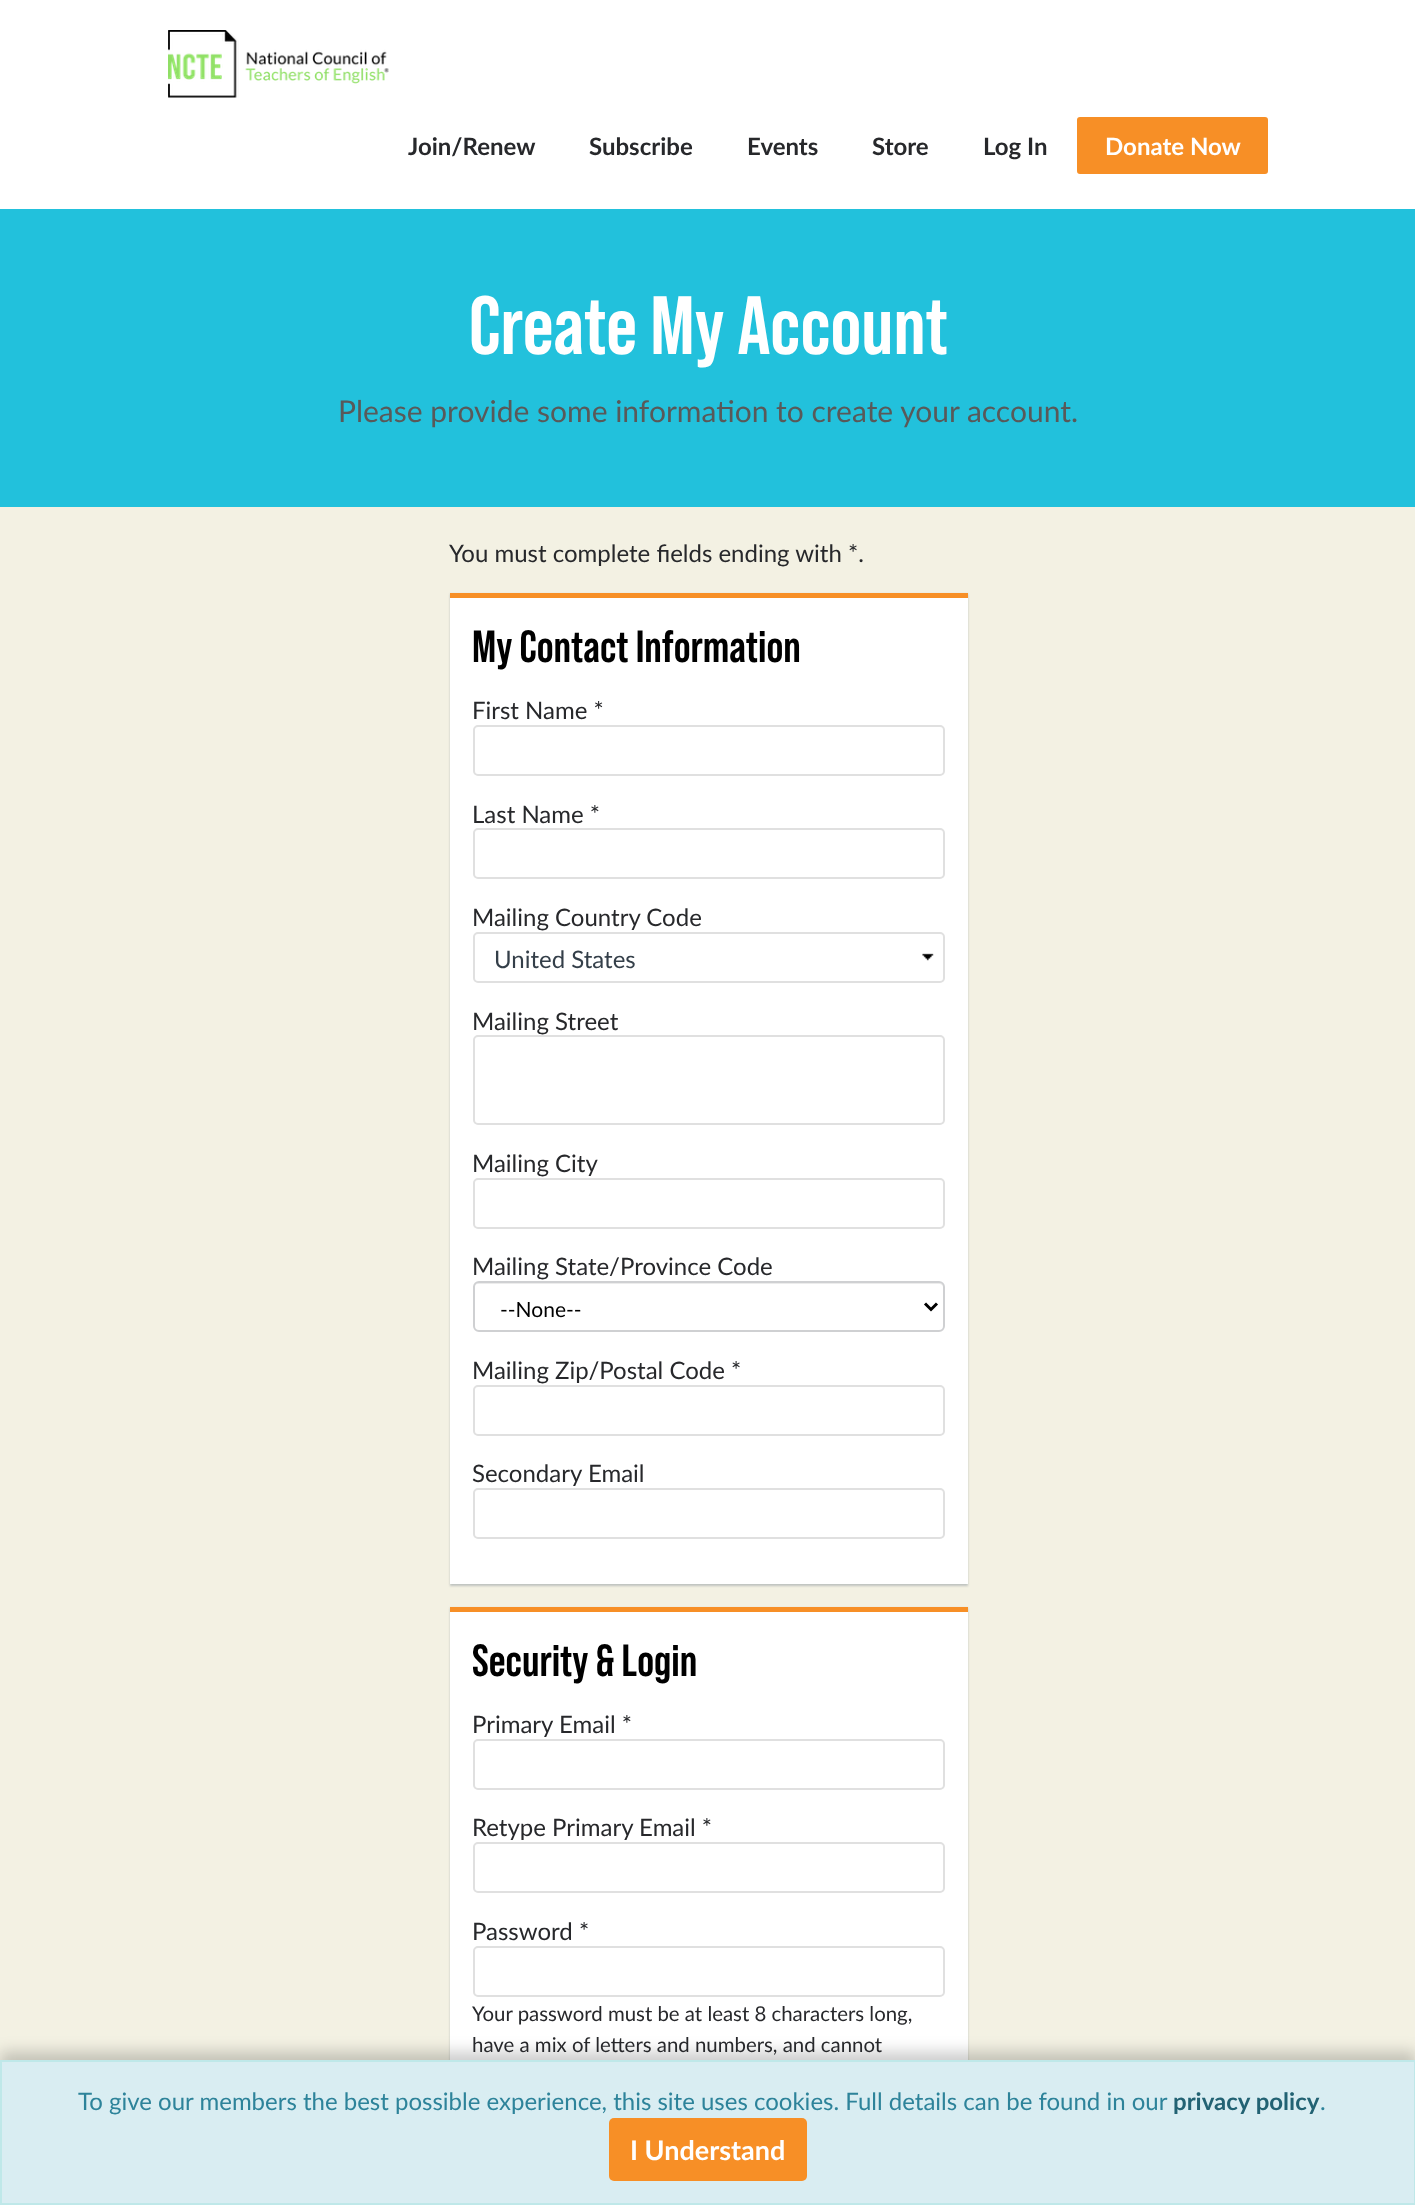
<?xml version="1.0" encoding="UTF-8"?>
<svg xmlns="http://www.w3.org/2000/svg" xmlns:xlink="http://www.w3.org/1999/xlink" width="1415" height="2205">
  <rect width="100%" height="100%" fill="#f3f1e3" />
  <rect width="1415" height="209" fill="#ffffff" />
  <image x="168" y="30" width="221" height="68" xlink:href="image1.png" />
  <rect x="1075.5" y="115.5" width="194" height="60" rx="4.5" fill="#f78f26" stroke="#ffffff" stroke-width="3" />
  <rect y="209" width="1415" height="298" fill="#22c1dc" />
  <rect x="450" y="594" width="518" height="992" fill="#253858" fill-opacity="0.25" filter="blur(1px)" />
  <rect x="450" y="598" width="518" height="986" fill="#ffffff" />
  <rect x="450" y="593" width="518" height="5" fill="#f78f26" />
  <rect x="474" y="726" width="470" height="49" rx="4" fill="none" stroke="#e0e0e0" stroke-width="2" />
  <rect x="474" y="829" width="470" height="49" rx="4" fill="none" stroke="#e0e0e0" stroke-width="2" />
  <image x="922" y="953" width="12" height="8" xlink:href="image2.png" />
  <rect x="474" y="933" width="470" height="49" rx="4" fill="none" stroke="#e0e0e0" stroke-width="2" />
  <rect x="474" y="1036" width="470" height="88" rx="4" fill="none" stroke="#e0e0e0" stroke-width="2" />
  <rect x="474" y="1179" width="470" height="49" rx="4" fill="none" stroke="#e0e0e0" stroke-width="2" />
  <path d="M 478 1284 h 461 c 2 0 5 2 5 4 c 0 -3 -2 -5 -5 -5 h -460 c -3 0 -5 2 -5 5 c 0 -2 2 -4 4 -4 z" fill="#ececec" />
  <rect x="474" y="1282" width="470" height="49" rx="5" fill="none" stroke="#cfd0d2" stroke-width="2" />
  <path d="M 925 1303.5 l 6 6 l 6 -6" fill="none" stroke="#000000" stroke-width="3" />
  <rect x="474" y="1386" width="470" height="49" rx="4" fill="none" stroke="#e0e0e0" stroke-width="2" />
  <rect x="474" y="1489" width="470" height="49" rx="4" fill="none" stroke="#e0e0e0" stroke-width="2" />
  <rect x="450" y="1608" width="518" height="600" fill="#253858" fill-opacity="0.25" filter="blur(1px)" />
  <rect x="450" y="1612" width="518" height="448" fill="#ffffff" />
  <rect x="450" y="1607" width="518" height="5" fill="#f78f26" />
  <rect x="474" y="1740" width="470" height="49" rx="4" fill="none" stroke="#e0e0e0" stroke-width="2" />
  <rect x="474" y="1843" width="470" height="49" rx="4" fill="none" stroke="#e0e0e0" stroke-width="2" />
  <rect x="474" y="1947" width="470" height="49" rx="4" fill="none" stroke="#e0e0e0" stroke-width="2" />
  <rect y="2052" width="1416" height="146" fill="#000000" fill-opacity="0.2" filter="blur(7.5px)" />
  <rect x="1" y="2061" width="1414" height="143" fill="#d9edf2" stroke="#bfe8e9" stroke-width="2" />
  <rect x="609" y="2118" width="198" height="63" rx="5" fill="#f78f26" />
  <text x="408" y="155" style="font-family: Lato; font-size: 24px; font-weight: bold; fill: #27282b">Join/Renew</text>
  <text x="589" y="155" style="font-family: Lato; font-size: 24px; font-weight: bold; fill: #27282b">Subscribe</text>
  <text x="747" y="155" style="font-family: Lato; font-size: 24px; font-weight: bold; fill: #27282b">Events</text>
  <text x="872" y="155" style="font-family: Lato; font-size: 24px; font-weight: bold; fill: #27282b">Store</text>
  <text x="983" y="155" style="font-family: Lato; font-size: 24px; font-weight: bold; fill: #27282b">Log In</text>
  <text x="1105" y="155" style="font-family: Lato; font-size: 24px; font-weight: bold; fill: #ffffff">Donate Now</text>
  <text x="469" y="354" style="font-family: Bebas Neue; font-size: 82.5px; font-weight: bold; fill: #ffffff">Create My Account</text>
  <text x="338" y="422" style="font-family: Lato; font-size: 30px; fill: #595959">Please provide some information to create your account.</text>
  <text x="449" y="562" style="font-family: Lato; font-size: 24px; fill: #27282b">You must complete fields ending with *.</text>
  <text x="472" y="662" style="font-family: Bebas Neue; font-size: 45px; font-weight: bold; fill: #000000">My Contact Information</text>
  <text x="472" y="719" style="font-family: Lato; font-size: 24px; fill: #27282b">First Name *</text>
  <text x="472" y="823" style="font-family: Lato; font-size: 24px; fill: #27282b">Last Name *</text>
  <text x="472" y="926" style="font-family: Lato; font-size: 24px; fill: #27282b">Mailing Country Code</text>
  <text x="494" y="968" style="font-family: Lato; font-size: 24px; fill: #343f49">United States</text>
  <text x="472" y="1030" style="font-family: Lato; font-size: 24px; fill: #27282b">Mailing Street</text>
  <text x="472" y="1172" style="font-family: Lato; font-size: 24px; fill: #27282b">Mailing City</text>
  <text x="472" y="1275" style="font-family: Lato; font-size: 24px; fill: #27282b">Mailing State/Province Code</text>
  <text x="500" y="1317" style="font-family: Lato; font-size: 21px; fill: #000000">--None--</text>
  <text x="472" y="1379" style="font-family: Lato; font-size: 24px; fill: #27282b">Mailing Zip/Postal Code *</text>
  <text x="472" y="1482" style="font-family: Lato; font-size: 24px; fill: #27282b">Secondary Email</text>
  <text x="472" y="1676" style="font-family: Bebas Neue; font-size: 45px; font-weight: bold; fill: #000000">Security &amp; Login</text>
  <text x="472" y="1733" style="font-family: Lato; font-size: 24px; fill: #27282b">Primary Email *</text>
  <text x="472" y="1836" style="font-family: Lato; font-size: 24px; fill: #27282b">Retype Primary Email *</text>
  <text x="472" y="1940" style="font-family: Lato; font-size: 24px; fill: #27282b">Password *</text>
  <text x="472" y="2021" style="font-family: Lato; font-size: 20.4px; fill: #27282b">Your password must be at least 8 characters long,</text>
  <text x="472" y="2052" style="font-family: Lato; font-size: 20.4px; fill: #27282b">have a mix of letters and numbers, and cannot</text>
  <text x="78" y="2110" style="font-family: Lato; font-size: 24px; fill: #2d839a">To give our members the best possible experience, this site uses cookies. Full details can be found in our</text>
  <text x="1173" y="2110" style="font-family: Lato; font-size: 24px; font-weight: bold; fill: #226273">privacy policy</text>
  <text x="1320" y="2110" style="font-family: Lato; font-size: 24px; fill: #2d839a">.</text>
  <text x="630" y="2160" style="font-family: Lato; font-size: 27px; font-weight: bold; fill: #ffffff">I Understand</text>
</svg>
